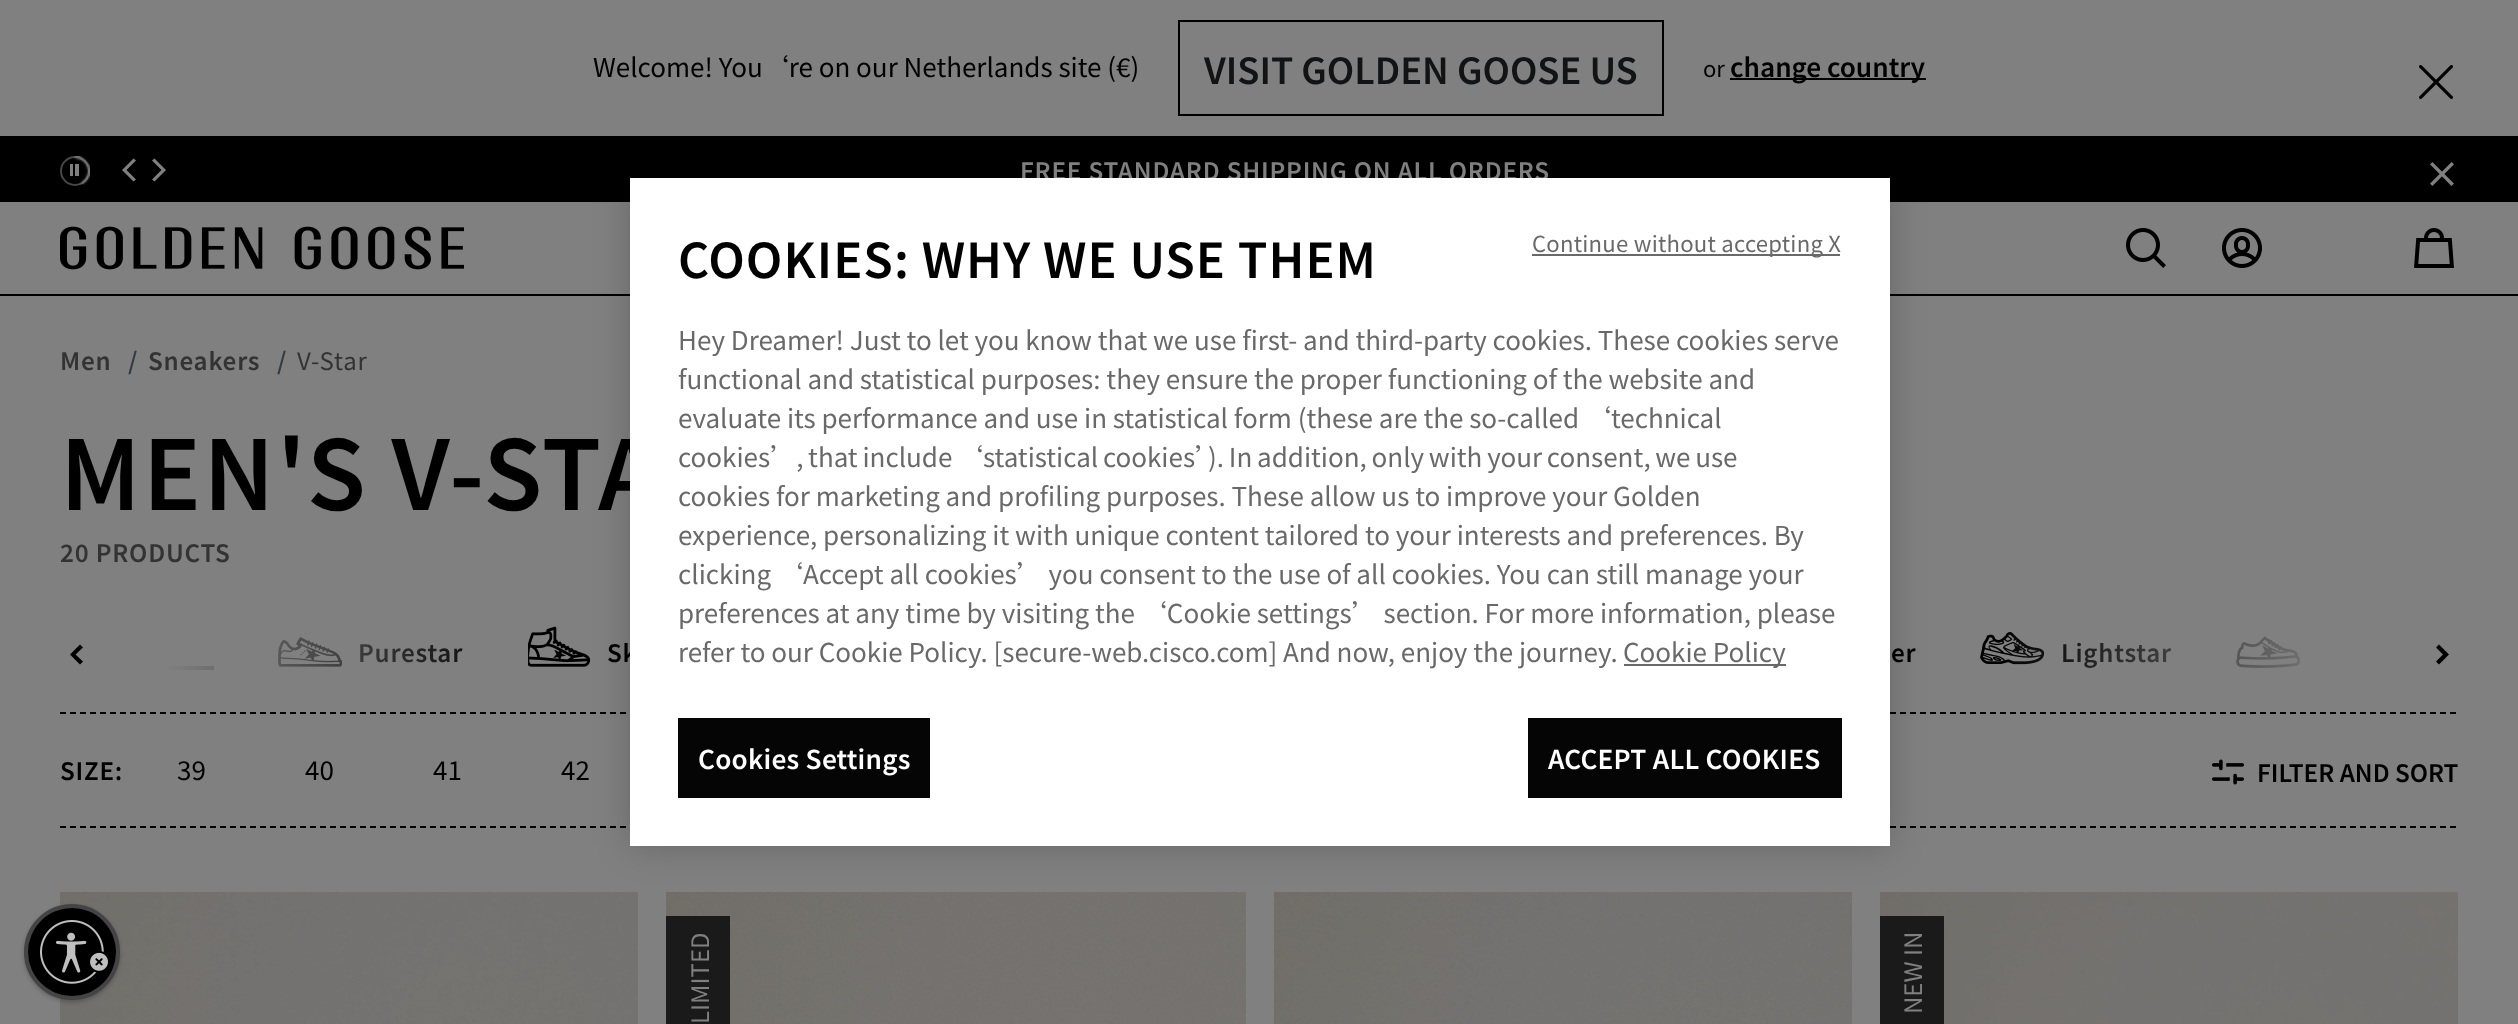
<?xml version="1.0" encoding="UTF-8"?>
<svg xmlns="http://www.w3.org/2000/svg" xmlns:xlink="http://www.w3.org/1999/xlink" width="2518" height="1024">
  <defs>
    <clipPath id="clip1"><rect x="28" y="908" width="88" height="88" rx="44" /></clipPath>
    <linearGradient id="g1" gradientUnits="userSpaceOnUse" x1="52" y1="654" x2="522" y2="654"><stop offset="0.24" stop-color="#808080" /><stop offset="1" stop-color="#808080" stop-opacity="0" /></linearGradient>
    <linearGradient id="g2" gradientUnits="userSpaceOnUse" x1="2466" y1="654" x2="1996" y2="654"><stop offset="0.24" stop-color="#808080" /><stop offset="1" stop-color="#808080" stop-opacity="0" /></linearGradient>
  </defs>
  <rect width="100%" height="100%" fill="#808080" />
  <rect x="1179" y="21" width="484" height="94" fill="none" stroke="#000000" stroke-width="2" />
  <rect x="1730" y="78" width="196" height="2" fill="#000000" />
  <image x="2419" y="65" width="34" height="34" xlink:href="image1.png" />
  <rect y="136" width="2518" height="66" fill="#000000" />
  <circle cx="75" cy="171" r="14" fill="none" stroke="#4d4d4d" stroke-width="2" />
  <image x="60" y="156" width="30" height="30" xlink:href="image2.png" />
  <rect x="70" y="164" width="3" height="12" fill="#808080" />
  <rect x="75" y="164" width="4" height="12" fill="#808080" />
  <path d="M 124.5 172.5 l 9 9 l 2.5 -2 l -9.5 -9.5 l 9.5 -9.5 l -2.5 -2 l -11.5 11.5 z" fill="#808080" />
  <path d="M 163.5 172.5 l -9 9 l -2.5 -2 l 9.5 -9.5 l -9.5 -9.5 l 2.5 -2 l 11.5 11.5 z" fill="#808080" />
  <image x="2430" y="162" width="24" height="24" xlink:href="image3.png" />
  <rect y="294" width="2518" height="2" fill="#000000" />
  <image x="60" y="226" width="404" height="44" xlink:href="image4.png" />
  <image x="2126" y="228" width="40" height="40" xlink:href="image5.png" />
  <image x="2222" y="228" width="40" height="40" xlink:href="image6.png" />
  <image x="2414" y="228" width="40" height="40" xlink:href="image7.png" />
  <path d="M 72 652.5 l 8 -8 l 3 3 l -7.5 7 l 7.5 7 l -3 3 l -10 -10 z" fill="#000000" />
  <image x="278" y="637" width="64" height="30" xlink:href="image8.png" />
  <image x="528" y="626" width="63" height="41" xlink:href="image9.png" />
  <image x="1980" y="632" width="64" height="33" xlink:href="image10.png" />
  <image x="2236" y="636" width="64" height="32" xlink:href="image11.png" />
  <rect x="167" y="666" width="47" height="4" fill="#000000" />
  <path d="M 2447 656.5 l -8 8 l -3 -3 l 7 -7 l -7 -7 l 3 -3 l 10 10 z" fill="#000000" />
  <path d="M 60 713 h 2398" fill="none" stroke="#000000" stroke-width="2" stroke-dasharray="6 4" />
  <path d="M 60 827 h 2398" fill="none" stroke="#000000" stroke-width="2" stroke-dasharray="6 4" />
  <image x="2212" y="759" width="32" height="26" xlink:href="image12.png" />
  <image x="60" y="892" width="578" height="132" xlink:href="image13.png" />
  <image x="666" y="892" width="580" height="132" xlink:href="image14.png" />
  <rect x="666" y="916" width="64" height="108" fill="#1a1a1a" />
  <image x="1274" y="892" width="578" height="132" xlink:href="image15.png" />
  <image x="1880" y="892" width="578" height="132" xlink:href="image16.png" />
  <rect x="1880" y="916" width="64" height="108" fill="#1a1a1a" />
  <rect x="630" y="178" width="1260" height="668" fill="#000000" fill-opacity="0.2" filter="blur(18px)" />
  <rect x="24" y="906" width="96" height="96" rx="48" fill="#000000" fill-opacity="0.24" filter="blur(2px)" />
  <circle cx="72" cy="952" r="46" fill="none" stroke="#444446" stroke-width="4" />
  <g clip-path="url(#clip1)">
    <rect x="28" y="910" width="88" height="88" rx="44" fill="#000000" fill-opacity="0.24" filter="blur(2px)" />
  </g>
  <circle cx="72" cy="952" r="44" fill="#000000" />
  <image x="40" y="920" width="68" height="64" xlink:href="image17.png" />
  <text x="593" y="77" style="font-family: Noto Sans SC; font-size: 26px; fill: #000000">Welcome! You‘re on our Netherlands site (€)</text>
  <text x="1204" y="84" style="font-family: Noto Sans SC; font-size: 36px; font-weight: 600; fill: #111315">VISIT GOLDEN GOOSE US</text>
  <text x="1703" y="77" style="font-family: Noto Sans SC; font-size: 22px; fill: #000000">or</text>
  <text x="1730" y="77" style="font-family: Noto Sans SC; font-size: 26px; font-weight: 600; fill: #000000">change country</text>
  <text x="1020" y="180" style="font-family: Noto Sans SC; font-size: 24px; font-weight: 600; letter-spacing: 0.8px; fill: #808080">FREE STANDARD SHIPPING ON ALL ORDERS</text>
  <text x="60" y="370" style="font-family: Noto Sans SC; font-size: 24px; font-weight: 600; letter-spacing: 0.8px; fill: #333333">Men</text>
  <text x="128" y="370" style="font-family: Noto Sans SC; font-size: 24px; font-weight: 600; letter-spacing: -2px; fill: #363b3f">/</text>
  <text x="148" y="370" style="font-family: Noto Sans SC; font-size: 24px; font-weight: 600; letter-spacing: 0.8px; fill: #333333">Sneakers</text>
  <text x="277" y="370" style="font-family: Noto Sans SC; font-size: 24px; font-weight: 600; letter-spacing: -2px; fill: #363b3f">/</text>
  <text x="297" y="370" style="font-family: Noto Sans SC; font-size: 24px; letter-spacing: 0.8px; fill: #333333">V-Star</text>
  <text x="60" y="510" style="font-family: Noto Sans SC; font-size: 96px; font-weight: 600; letter-spacing: 2px; fill: #000000">MEN'S V-STA</text>
  <text x="60" y="562" style="font-family: Noto Sans SC; font-size: 24px; font-weight: 600; letter-spacing: 0.8px; fill: #333333">20 PRODUCTS</text>
  <text x="358" y="662" style="font-family: Noto Sans SC; font-size: 24px; font-weight: 600; letter-spacing: 0.8px; fill: #000000">Purestar</text>
  <rect x="167" y="637" width="295" height="33" fill="url(#g1)" />
  <text x="607" y="662" style="font-family: Noto Sans SC; font-size: 24px; font-weight: 600; letter-spacing: 0.8px; fill: #000000">Sk</text>
  <text x="1891" y="662" style="font-family: Noto Sans SC; font-size: 24px; font-weight: 600; letter-spacing: 0.8px; fill: #000000">er</text>
  <text x="2061" y="662" style="font-family: Noto Sans SC; font-size: 24px; font-weight: 600; letter-spacing: 0.8px; fill: #000000">Lightstar</text>
  <rect x="2004" y="632" width="296" height="36" fill="url(#g2)" />
  <text x="60" y="780" style="font-family: Noto Sans SC; font-size: 24px; font-weight: 600; letter-spacing: 0.8px; fill: #000000">SIZE:</text>
  <text x="177" y="780" style="font-family: Noto Sans SC; font-size: 26px; fill: #000000">39</text>
  <text x="305" y="780" style="font-family: Noto Sans SC; font-size: 26px; fill: #000000">40</text>
  <text x="433" y="780" style="font-family: Noto Sans SC; font-size: 26px; fill: #000000">41</text>
  <text x="561" y="780" style="font-family: Noto Sans SC; font-size: 26px; fill: #000000">42</text>
  <text x="2257" y="782" style="font-family: Noto Sans SC; font-size: 24px; font-weight: 600; fill: #000000">FILTER AND SORT</text>
  <text x="709" y="1024" transform="rotate(-90 709 1024)" style="font-family: Noto Sans SC; font-size: 24px; fill: #808080">LIMITED</text>
  <text x="1922" y="1014" transform="rotate(-90 1922 1014)" style="font-family: Noto Sans SC; font-size: 24px; fill: #808080">NEW IN</text>
  <rect x="630" y="178" width="1260" height="668" fill="#ffffff" />
  <rect x="1532" y="254" width="308" height="2" fill="#696969" />
  <text x="1532" y="252" style="font-family: Noto Sans SC; font-size: 22.1px; letter-spacing: 0.25px; fill: #696969">Continue without accepting X</text>
  <text x="678" y="278" style="font-family: Noto Sans SC; font-size: 48px; font-weight: 600; letter-spacing: 1px; fill: #000000">COOKIES: WHY WE USE THEM</text>
  <text x="678" y="350" style="font-family: Noto Sans SC; font-size: 26px; fill: #696969">Hey Dreamer! Just to let you know that we use first- and third-party cookies. These cookies serve</text>
  <text x="678" y="389" style="font-family: Noto Sans SC; font-size: 26px; fill: #696969">functional and statistical purposes: they ensure the proper functioning of the website and</text>
  <text x="678" y="428" style="font-family: Noto Sans SC; font-size: 26px; fill: #696969">evaluate its performance and use in statistical form (these are the so-called ‘technical</text>
  <text x="678" y="467" word-spacing="-1.1" style="font-family: Noto Sans SC; font-size: 26px; fill: #696969">cookies’, that include ‘statistical cookies’). In addition, only with your consent, we use</text>
  <text x="678" y="506" style="font-family: Noto Sans SC; font-size: 26px; fill: #696969">cookies for marketing and profiling purposes. These allow us to improve your Golden</text>
  <text x="678" y="545" style="font-family: Noto Sans SC; font-size: 26px; fill: #696969">experience, personalizing it with unique content tailored to your interests and preferences. By</text>
  <text x="678" y="584" style="font-family: Noto Sans SC; font-size: 26px; fill: #696969">clicking ‘Accept all cookies’ you consent to the use of all cookies. You can still manage your</text>
  <text x="678" y="623" style="font-family: Noto Sans SC; font-size: 26px; fill: #696969">preferences at any time by visiting the ‘Cookie settings’ section. For more information, please</text>
  <text x="678" y="662" style="font-family: Noto Sans SC; font-size: 26px; fill: #696969">refer to our Cookie Policy. [secure-web.cisco.com]</text>
  <text x="1283" y="662" style="font-family: Noto Sans SC; font-size: 26px; fill: #696969">And now, enjoy the journey.</text>
  <rect x="1624" y="664" width="162" height="2" fill="#696969" />
  <text x="1623" y="662" style="font-family: Noto Sans SC; font-size: 26px; fill: #696969">Cookie Policy</text>
  <rect x="678" y="718" width="252" height="80" fill="#050505" />
  <text x="698" y="769" style="font-family: Noto Sans SC; font-size: 26px; font-weight: 600; letter-spacing: 0.25px; fill: #ffffff">Cookies Settings</text>
  <rect x="1528" y="718" width="314" height="80" fill="#050505" />
  <text x="1548" y="769" style="font-family: Noto Sans SC; font-size: 26px; font-weight: 600; letter-spacing: 0.25px; fill: #ffffff">ACCEPT ALL COOKIES</text>
</svg>
